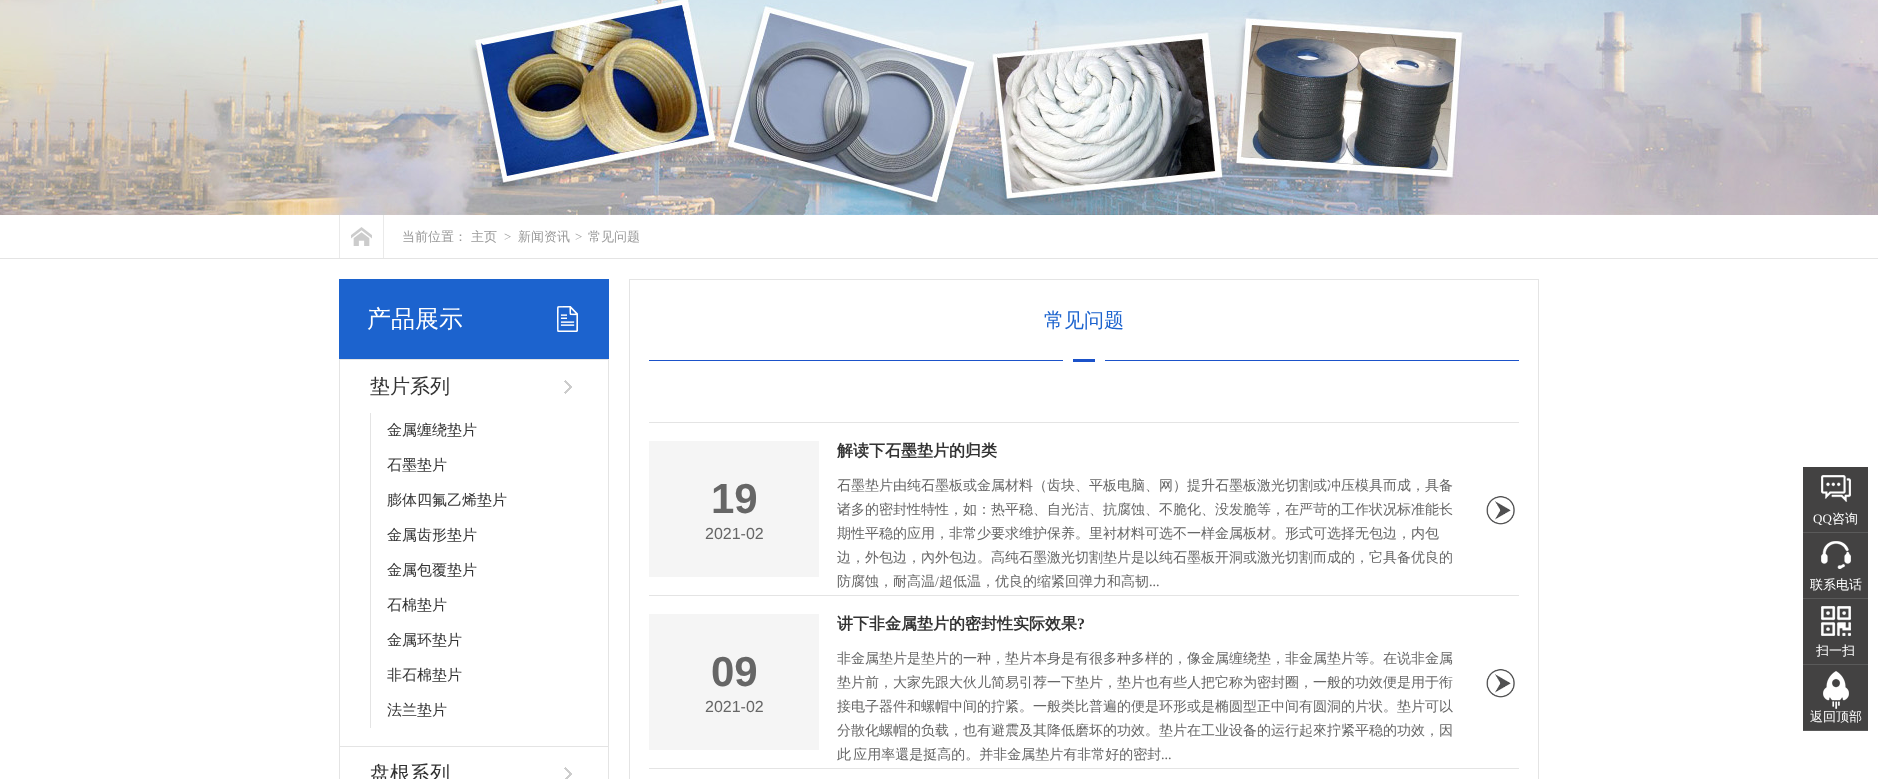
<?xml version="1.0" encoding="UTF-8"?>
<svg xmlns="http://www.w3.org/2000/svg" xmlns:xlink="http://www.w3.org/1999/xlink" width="1878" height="779">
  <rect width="100%" height="100%" fill="#ffffff" />
  <image x="0" y="0" width="1878" height="215" xlink:href="image1.png" />
  <rect y="258" width="1878" height="1" fill="#e4e4e4" />
  <image x="351" y="227" width="21" height="19" xlink:href="image2.png" />
  <rect x="383" y="215" width="1" height="43" fill="#eaeaea" />
  <rect x="339" y="215" width="1" height="43" fill="#eaeaea" />
  <rect x="339" y="279" width="270" height="80" fill="#1c63ce" />
  <image x="557" y="306" width="21" height="26" xlink:href="image3.png" />
  <rect x="339.5" y="359.5" width="269" height="387" fill="none" stroke="#e4e4e4" />
  <image x="564" y="380" width="8" height="14" xlink:href="image4.png" />
  <rect x="370" y="413" width="1" height="315" fill="#e4e4e4" />
  <rect x="608" y="747" width="1" height="32" fill="#e4e4e4" />
  <rect x="339" y="747" width="1" height="32" fill="#e4e4e4" />
  <image x="564" y="767" width="8" height="12" xlink:href="image5.png" />
  <rect x="629.5" y="279.5" width="909" height="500" fill="none" stroke="#e4e4e4" />
  <image x="649" y="359" width="870" height="3" xlink:href="image6.png" />
  <rect x="649" y="422" width="870" height="1" fill="#e4e4e4" />
  <rect x="649" y="441" width="170" height="136" fill="#f5f5f5" />
  <image x="1486" y="496" width="29" height="29" xlink:href="image7.png" />
  <rect x="649" y="595" width="870" height="1" fill="#e4e4e4" />
  <rect x="649" y="614" width="170" height="136" fill="#f5f5f5" />
  <image x="1486" y="669" width="29" height="29" xlink:href="image8.png" />
  <rect x="649" y="768" width="870" height="1" fill="#e4e4e4" />
  <rect x="1803" y="467" width="65" height="65" fill="#434242" />
  <image x="1821" y="475" width="30" height="27" xlink:href="image9.png" />
  <rect x="1803" y="532" width="65" height="1" fill="#5a5a5a" />
  <rect x="1803" y="533" width="65" height="65" fill="#434242" />
  <image x="1821" y="541" width="30" height="28" xlink:href="image10.png" />
  <rect x="1803" y="598" width="65" height="1" fill="#5a5a5a" />
  <rect x="1803" y="599" width="65" height="65" fill="#434242" />
  <image x="1821" y="606" width="30" height="30" xlink:href="image11.png" />
  <rect x="1803" y="664" width="65" height="1" fill="#5a5a5a" />
  <rect x="1803" y="665" width="65" height="65" fill="#434242" />
  <image x="1823" y="671" width="26" height="38" xlink:href="image12.png" />
  <rect x="1803" y="730" width="65" height="1" fill="#5a5a5a" />
  <text x="402" y="241" style="font-family: WenQuanYi Zen Hei; font-size: 13px; font-weight: 500; fill: #999999">当前位置： 主页</text>
  <text x="504" y="241" style="font-family: Liberation Serif; font-size: 13px; fill: #999999">&gt;</text>
  <text x="518" y="241" style="font-family: WenQuanYi Zen Hei; font-size: 13px; font-weight: 500; fill: #999999">新闻资讯</text>
  <text x="575" y="241" style="font-family: Liberation Serif; font-size: 13px; fill: #999999">&gt;</text>
  <text x="588" y="241" style="font-family: WenQuanYi Zen Hei; font-size: 13px; font-weight: 500; fill: #999999">常见问题</text>
  <text x="367" y="327" style="font-family: WenQuanYi Zen Hei; font-size: 24px; font-weight: 500; fill: #ffffff">产品展示</text>
  <text x="370" y="393" style="font-family: WenQuanYi Zen Hei; font-size: 20px; font-weight: 500; fill: #333333">垫片系列</text>
  <text x="387" y="435" style="font-family: WenQuanYi Zen Hei; font-size: 15px; font-weight: 500; fill: #333333">金属缠绕垫片</text>
  <text x="387" y="470" style="font-family: WenQuanYi Zen Hei; font-size: 15px; font-weight: 500; fill: #333333">石墨垫片</text>
  <text x="387" y="505" style="font-family: WenQuanYi Zen Hei; font-size: 15px; font-weight: 500; fill: #333333">膨体四氟乙烯垫片</text>
  <text x="387" y="540" style="font-family: WenQuanYi Zen Hei; font-size: 15px; font-weight: 500; fill: #333333">金属齿形垫片</text>
  <text x="387" y="575" style="font-family: WenQuanYi Zen Hei; font-size: 15px; font-weight: 500; fill: #333333">金属包覆垫片</text>
  <text x="387" y="610" style="font-family: WenQuanYi Zen Hei; font-size: 15px; font-weight: 500; fill: #333333">石棉垫片</text>
  <text x="387" y="645" style="font-family: WenQuanYi Zen Hei; font-size: 15px; font-weight: 500; fill: #333333">金属环垫片</text>
  <text x="387" y="680" style="font-family: WenQuanYi Zen Hei; font-size: 15px; font-weight: 500; fill: #333333">非石棉垫片</text>
  <text x="387" y="715" style="font-family: WenQuanYi Zen Hei; font-size: 15px; font-weight: 500; fill: #333333">法兰垫片</text>
  <text x="370" y="780" style="font-family: WenQuanYi Zen Hei; font-size: 20px; font-weight: 500; fill: #333333">盘根系列</text>
  <text x="1044" y="327" style="font-family: WenQuanYi Zen Hei; font-size: 20px; font-weight: 500; fill: #1c63ce">常见问题</text>
  <text x="711" y="513" style="font-family: Liberation Sans; font-size: 42px; font-weight: bold; fill: #666666">19</text>
  <text x="705" y="539" style="font-family: Liberation Sans; font-size: 16px; fill: #666666">2021-02</text>
  <text x="837" y="456" style="font-family: WenQuanYi Zen Hei; font-size: 16px; font-weight: bold; fill: #333333">解读下石墨垫片的归类</text>
  <text x="837" y="490" style="font-family: WenQuanYi Zen Hei; font-size: 14px; font-weight: 500; fill: #666666">石墨垫片由纯石墨板或金属材料（齿块、平板电脑、网）提升石墨板激光切割或冲压模具而成，具备</text>
  <text x="837" y="514" style="font-family: WenQuanYi Zen Hei; font-size: 14px; font-weight: 500; fill: #666666">诸多的密封性特性，如：热平稳、自光洁、抗腐蚀、不脆化、没发脆等，在严苛的工作状况标准能长</text>
  <text x="837" y="538" style="font-family: WenQuanYi Zen Hei; font-size: 14px; font-weight: 500; fill: #666666">期性平稳的应用，非常少要求维护保养。里衬材料可选不一样金属板材。形式可选择无包边，内包</text>
  <text x="837" y="562" style="font-family: WenQuanYi Zen Hei; font-size: 14px; font-weight: 500; fill: #666666">边，外包边，內外包边。高纯石墨激光切割垫片是以纯石墨板开洞或激光切割而成的，它具备优良的</text>
  <text x="837" y="586" style="font-family: WenQuanYi Zen Hei; font-size: 14px; font-weight: 500; fill: #666666">防腐蚀，耐高温</text>
  <text x="935" y="586" style="font-family: Liberation Serif; font-size: 14px; fill: #666666">/</text>
  <text x="939" y="586" style="font-family: WenQuanYi Zen Hei; font-size: 14px; font-weight: 500; fill: #666666">超低温，优良的缩紧回弹力和高韧</text>
  <text x="1149" y="586" style="font-family: Liberation Serif; font-size: 14px; fill: #666666">...</text>
  <text x="711" y="686" style="font-family: Liberation Sans; font-size: 42px; font-weight: bold; fill: #666666">09</text>
  <text x="705" y="712" style="font-family: Liberation Sans; font-size: 16px; fill: #666666">2021-02</text>
  <text x="837" y="629" style="font-family: WenQuanYi Zen Hei; font-size: 16px; font-weight: bold; fill: #333333">讲下非金属垫片的密封性实际效果</text>
  <text x="1077" y="629" style="font-family: Liberation Serif; font-size: 16px; font-weight: bold; fill: #333333">?</text>
  <text x="837" y="663" style="font-family: WenQuanYi Zen Hei; font-size: 14px; font-weight: 500; fill: #666666">非金属垫片是垫片的一种，垫片本身是有很多种多样的，像金属缠绕垫，非金属垫片等。在说非金属</text>
  <text x="837" y="687" style="font-family: WenQuanYi Zen Hei; font-size: 14px; font-weight: 500; fill: #666666">垫片前，大家先跟大伙儿简易引荐一下垫片，垫片也有些人把它称为密封圈，一般的功效便是用于衔</text>
  <text x="837" y="711" style="font-family: WenQuanYi Zen Hei; font-size: 14px; font-weight: 500; fill: #666666">接电子器件和螺帽中间的拧紧。一般类比普遍的便是环形或是椭圆型正中间有圆洞的片状。垫片可以</text>
  <text x="837" y="735" style="font-family: WenQuanYi Zen Hei; font-size: 14px; font-weight: 500; fill: #666666">分散化螺帽的负载，也有避震及其降低磨坏的功效。垫片在工业设备的运行起來拧紧平稳的功效，因</text>
  <text x="837" y="759" word-spacing="-2" style="font-family: WenQuanYi Zen Hei; font-size: 14px; font-weight: 500; fill: #666666">此 应用率還是挺高的。并非金属垫片有非常好的密封</text>
  <text x="1161" y="759" style="font-family: Liberation Serif; font-size: 14px; fill: #666666">...</text>
  <text x="1813" y="523" style="font-family: Liberation Serif; font-size: 13px; fill: #ffffff">QQ</text>
  <text x="1832" y="523" style="font-family: WenQuanYi Zen Hei; font-size: 13px; font-weight: 500; fill: #ffffff">咨询</text>
  <text x="1810" y="589" style="font-family: WenQuanYi Zen Hei; font-size: 13px; font-weight: 500; fill: #ffffff">联系电话</text>
  <text x="1816" y="655" style="font-family: WenQuanYi Zen Hei; font-size: 13px; font-weight: 500; fill: #ffffff">扫一扫</text>
  <text x="1810" y="721" style="font-family: WenQuanYi Zen Hei; font-size: 13px; font-weight: 500; fill: #ffffff">返回顶部</text>
</svg>
